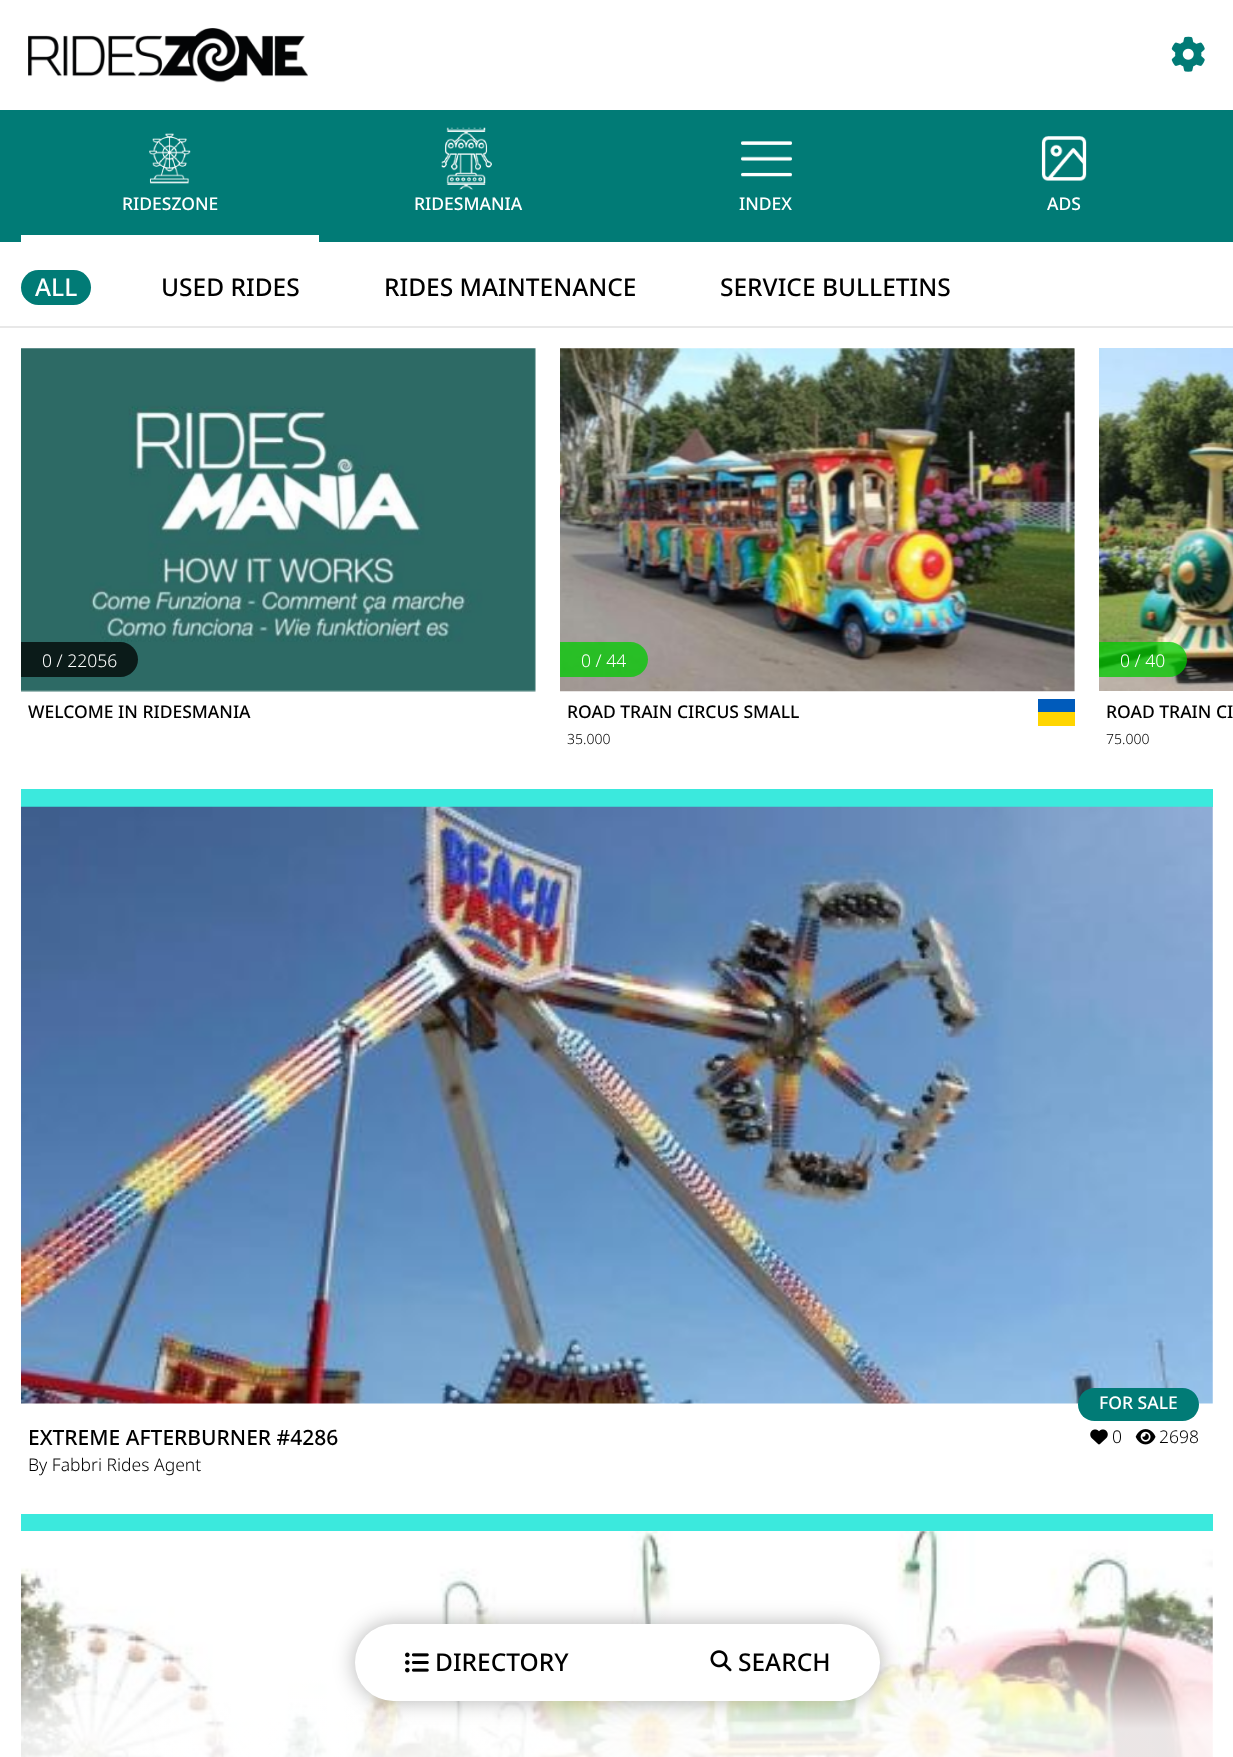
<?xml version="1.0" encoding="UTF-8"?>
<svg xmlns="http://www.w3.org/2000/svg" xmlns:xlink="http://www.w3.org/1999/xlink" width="1233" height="1757">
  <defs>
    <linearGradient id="g1" gradientUnits="userSpaceOnUse" x1="617" y1="1757" x2="617" y2="1568"><stop offset="0.15" stop-color="#ffffff" stop-opacity="0.9" /><stop offset="1" stop-color="#ffffff" stop-opacity="0" /></linearGradient>
  </defs>
  <rect width="100%" height="100%" fill="#ffffff" />
  <image x="28" y="28" width="280" height="55" xlink:href="image1.png" />
  <image x="1171" y="36" width="34" height="36" xlink:href="image2.png" />
  <rect y="110" width="1233" height="132" fill="#017b76" />
  <image x="149" y="133" width="42" height="51" xlink:href="image3.png" />
  <rect x="21" y="235" width="298" height="7" fill="#ffffff" />
  <image x="441" y="127" width="51" height="63" xlink:href="image4.png" />
  <image x="741" y="141" width="51" height="36" xlink:href="image5.png" />
  <image x="1041" y="136" width="46" height="45" xlink:href="image6.png" />
  <rect x="21" y="270" width="70" height="35" rx="17.5" fill="#017b76" />
  <rect y="326" width="1233" height="2" fill="#e8e8e8" />
  <image x="21" y="348" width="515" height="344" xlink:href="image7.png" />
  <path d="M 21 642 h 99.5 c 9.5 0 17.5 8 17.5 17.5 c 0 9.5 -8 17.5 -17.5 17.5 h -99.5 z" fill="#0b1b19" />
  <image x="560" y="348" width="515" height="344" xlink:href="image8.png" />
  <path d="M 560 642 h 70.5 c 9.5 0 17.5 8 17.5 17.5 c 0 9.5 -8 17.5 -17.5 17.5 h -70.5 z" fill="#00cb00" fill-opacity="0.75" />
  <rect x="1038" y="712" width="37" height="14" fill="#ffd500" />
  <rect x="1038" y="699" width="37" height="13" fill="#005bbb" />
  <image x="1099" y="348" width="134" height="343" xlink:href="image9.png" />
  <path d="M 1099 642 h 70.5 c 9.5 0 17.5 8 17.5 17.5 c 0 9.5 -8 17.5 -17.5 17.5 h -70.5 z" fill="#00cb00" fill-opacity="0.75" />
  <rect x="21" y="789" width="1192" height="18" fill="#3be9dd" />
  <image x="21" y="806" width="1192" height="598" xlink:href="image10.png" />
  <rect x="1078" y="1388" width="121" height="33" rx="16.5" fill="#017b76" />
  <image x="1090" y="1429" width="18" height="16" xlink:href="image11.png" />
  <image x="1135" y="1429" width="21" height="16" xlink:href="image12.png" />
  <rect x="21" y="1514" width="1192" height="17" fill="#3be9dd" />
  <image x="21" y="1531" width="1192" height="226" xlink:href="image13.png" />
  <rect x="21" y="1572" width="1192" height="185" fill="url(#g1)" />
  <rect x="355" y="1624" width="525" height="77" rx="38.5" fill="#000000" fill-opacity="0.3" filter="blur(10.5px)" />
  <rect x="355" y="1624" width="525" height="77" rx="38.5" fill="#ffffff" />
  <image x="405" y="1652" width="24" height="21" xlink:href="image14.png" />
  <image x="710" y="1650" width="22" height="22" xlink:href="image15.png" />
  <text x="122" y="210" style="font-family: Noto Sans; font-size: 17.5px; font-weight: 500; fill: #ffffff">RIDESZONE</text>
  <text x="414" y="210" style="font-family: Noto Sans; font-size: 17.5px; font-weight: 500; fill: #ffffff">RIDESMANIA</text>
  <text x="739" y="210" style="font-family: Noto Sans; font-size: 17.5px; font-weight: 500; fill: #ffffff">INDEX</text>
  <text x="1047" y="210" style="font-family: Noto Sans; font-size: 17.5px; font-weight: 500; fill: #ffffff">ADS</text>
  <text x="35" y="296" style="font-family: Noto Sans; font-size: 24.5px; font-weight: 500; fill: #ffffff">ALL</text>
  <text x="161" y="296" style="font-family: Noto Sans; font-size: 24.5px; font-weight: 500; fill: #000000">USED RIDES</text>
  <text x="384" y="296" style="font-family: Noto Sans; font-size: 24.5px; font-weight: 500; fill: #000000">RIDES MAINTENANCE</text>
  <text x="720" y="296" style="font-family: Noto Sans; font-size: 24.5px; font-weight: 500; fill: #000000">SERVICE BULLETINS</text>
  <text x="42" y="667" style="font-family: Noto Sans; font-size: 17.5px; font-weight: 300; fill: #ffffff">0 / 22056</text>
  <text x="28" y="718" style="font-family: Noto Sans; font-size: 17.5px; font-weight: 500; fill: #000000">WELCOME IN RIDESMANIA</text>
  <text x="581" y="667" style="font-family: Noto Sans; font-size: 17.5px; font-weight: 300; fill: #ffffff">0 / 44</text>
  <text x="567" y="718" style="font-family: Noto Sans; font-size: 17.5px; font-weight: 500; fill: #000000">ROAD TRAIN CIRCUS SMALL</text>
  <text x="567" y="744" style="font-family: Noto Sans; font-size: 14px; font-weight: 300; fill: #000000">35.000</text>
  <text x="1120" y="667" style="font-family: Noto Sans; font-size: 17.5px; font-weight: 300; fill: #ffffff">0 / 40</text>
  <text x="1106" y="718" style="font-family: Noto Sans; font-size: 17.5px; font-weight: 500; fill: #000000">ROAD TRAIN CI</text>
  <text x="1106" y="744" style="font-family: Noto Sans; font-size: 14px; font-weight: 300; fill: #000000">75.000</text>
  <text x="1099" y="1409" style="font-family: Noto Sans; font-size: 17.5px; font-weight: 500; fill: #ffffff">FOR SALE</text>
  <text x="28" y="1445" style="font-family: Noto Sans; font-size: 21px; font-weight: 500; fill: #000000">EXTREME AFTERBURNER #4286</text>
  <text x="1112" y="1443" style="font-family: Noto Sans; font-size: 17.5px; font-weight: 300; fill: #000000">0</text>
  <text x="1159" y="1443" style="font-family: Noto Sans; font-size: 17.5px; font-weight: 300; fill: #000000">2698</text>
  <text x="28" y="1471" style="font-family: Noto Sans; font-size: 17.5px; font-weight: 300; fill: #000000">By Fabbri Rides Agent</text>
  <text x="435" y="1671" style="font-family: Noto Sans; font-size: 24.5px; font-weight: 500; fill: #000000">DIRECTORY</text>
  <text x="738" y="1671" style="font-family: Noto Sans; font-size: 24.5px; font-weight: 500; fill: #000000">SEARCH</text>
</svg>
